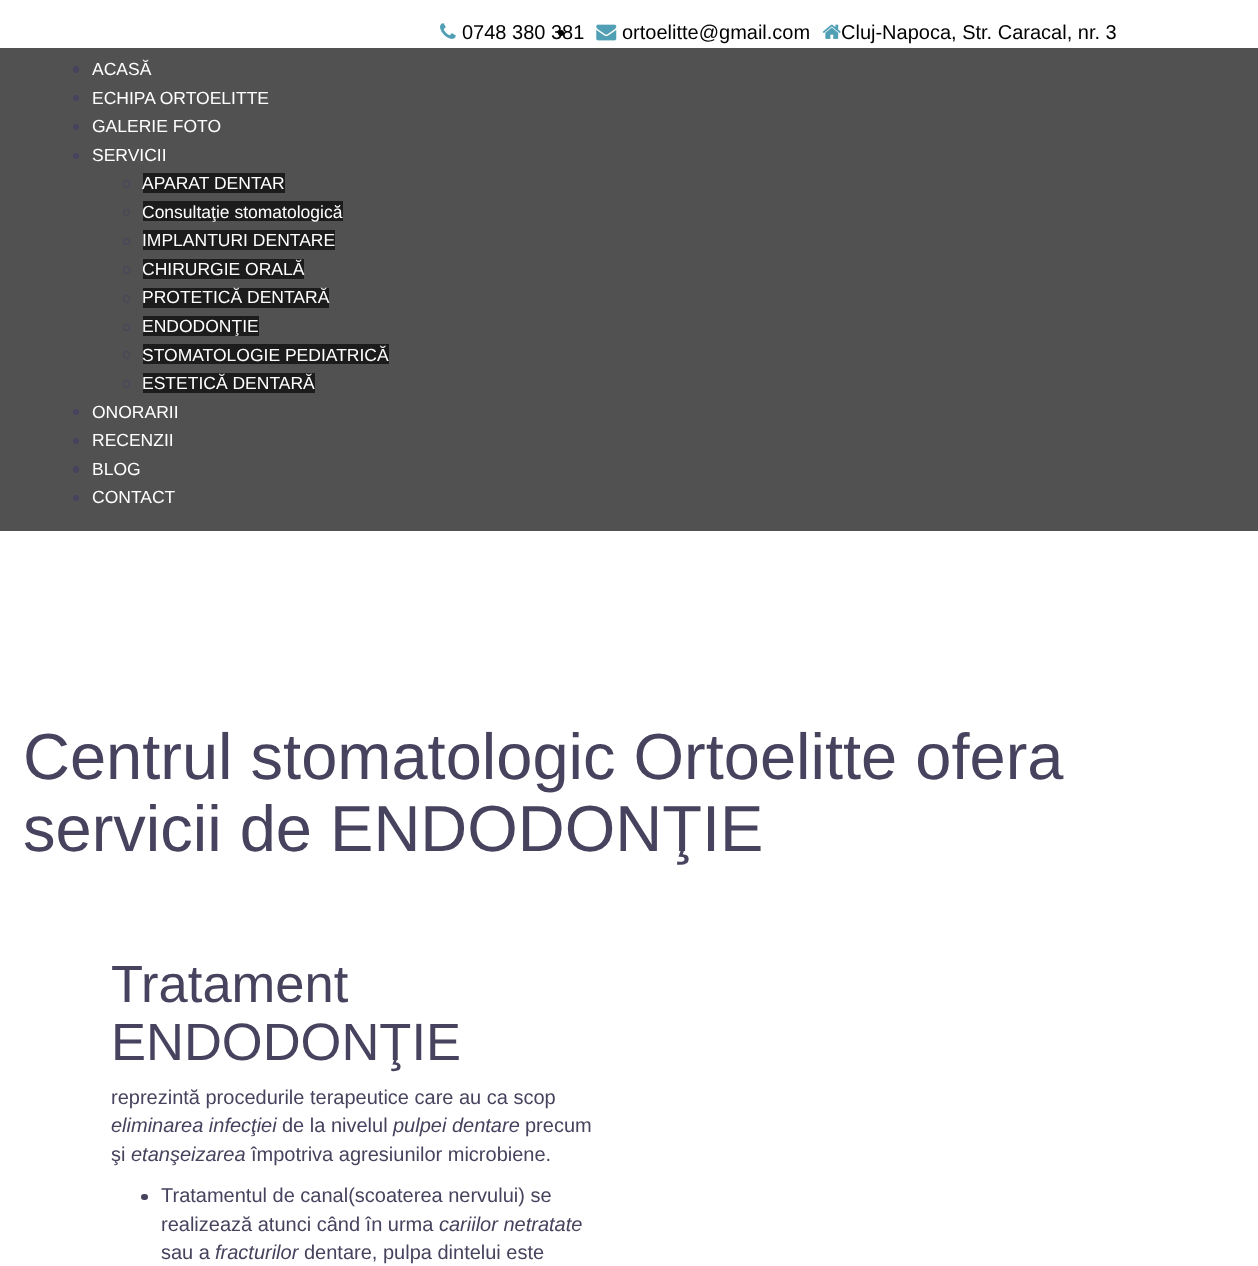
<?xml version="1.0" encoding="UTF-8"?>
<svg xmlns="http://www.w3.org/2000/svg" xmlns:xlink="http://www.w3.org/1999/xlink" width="1258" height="1266">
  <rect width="100%" height="100%" fill="#ffffff" />
  <image x="440" y="23" width="16" height="16" xlink:href="image1.png" />
  <image x="596" y="24" width="21" height="17" xlink:href="image2.png" />
  <image x="822" y="24" width="19" height="15" xlink:href="image3.png" />
  <circle cx="561" cy="33" r="3" fill="#000000" />
  <rect y="48" width="1258" height="483" fill="#515151" />
  <rect x="73" y="66" width="6" height="7" rx="3" fill="#47425d" />
  <circle cx="76" cy="98" r="3" fill="#47425d" />
  <circle cx="76" cy="127" r="3" fill="#47425d" />
  <circle cx="76" cy="156" r="3" fill="#47425d" />
  <rect x="123.5" y="180.5" width="6" height="7" rx="3" fill="none" stroke="#47425d" />
  <rect x="143" y="173" width="142" height="20" fill="#1c1c1c" />
  <circle cx="126.5" cy="212.5" r="3" fill="none" stroke="#47425d" />
  <rect x="143" y="201" width="200" height="20" fill="#1c1c1c" />
  <circle cx="126.5" cy="241.5" r="3" fill="none" stroke="#47425d" />
  <rect x="143" y="230" width="192" height="20" fill="#1c1c1c" />
  <rect x="123.5" y="266.5" width="6" height="7" rx="3" fill="none" stroke="#47425d" />
  <rect x="143" y="259" width="161" height="20" fill="#1c1c1c" />
  <rect x="123.5" y="295.5" width="6" height="7" rx="3" fill="none" stroke="#47425d" />
  <rect x="143" y="288" width="186" height="20" fill="#1c1c1c" />
  <circle cx="126.5" cy="327.5" r="3" fill="none" stroke="#47425d" />
  <rect x="143" y="316" width="116" height="20" fill="#1c1c1c" />
  <rect x="123.5" y="351.5" width="6" height="7" rx="3" fill="none" stroke="#47425d" />
  <rect x="143" y="344" width="246" height="20" fill="#1c1c1c" />
  <rect x="123.5" y="380.5" width="6" height="7" rx="3" fill="none" stroke="#47425d" />
  <rect x="143" y="373" width="172" height="20" fill="#1c1c1c" />
  <circle cx="76" cy="412" r="3" fill="#47425d" />
  <circle cx="76" cy="441" r="3" fill="#47425d" />
  <rect x="73" y="466" width="6" height="7" rx="3" fill="#47425d" />
  <circle cx="76" cy="498" r="3" fill="#47425d" />
  <rect x="141" y="1194" width="7" height="6" rx="3" fill="#47425d" />
  <text x="462" y="39" style="font-family: Liberation Sans; font-size: 20px; fill: #000000">0748 380 381</text>
  <text x="622" y="39" style="font-family: Liberation Sans; font-size: 20px; fill: #000000">ortoelitte@gmail.com</text>
  <text x="841" y="39" style="font-family: Liberation Sans; font-size: 20px; fill: #000000">Cluj-Napoca, Str. Caracal, nr. 3</text>
  <text x="92" y="75" style="font-family: Liberation Sans; font-size: 17.5px; fill: #ffffff">ACASĂ</text>
  <text x="92" y="104" style="font-family: Liberation Sans; font-size: 17.5px; fill: #ffffff">ECHIPA ORTOELITTE</text>
  <text x="92" y="132" style="font-family: Liberation Sans; font-size: 17.5px; fill: #ffffff">GALERIE FOTO</text>
  <text x="92" y="161" style="font-family: Liberation Sans; font-size: 17.5px; fill: #ffffff">SERVICII</text>
  <text x="142" y="189" style="font-family: Liberation Sans; font-size: 17.5px; fill: #ffffff">APARAT DENTAR</text>
  <text x="142" y="218" style="font-family: Liberation Sans; font-size: 17.5px; fill: #ffffff">Consultaţie stomatologică</text>
  <text x="142" y="246" style="font-family: Liberation Sans; font-size: 17.5px; fill: #ffffff">IMPLANTURI DENTARE</text>
  <text x="142" y="275" style="font-family: Liberation Sans; font-size: 17.5px; fill: #ffffff">CHIRURGIE ORALĂ</text>
  <text x="142" y="303" style="font-family: Liberation Sans; font-size: 17.5px; fill: #ffffff">PROTETICĂ DENTARĂ</text>
  <text x="142" y="332" style="font-family: Liberation Sans; font-size: 17.5px; fill: #ffffff">ENDODONŢIE</text>
  <text x="142" y="361" style="font-family: Liberation Sans; font-size: 17.5px; fill: #ffffff">STOMATOLOGIE PEDIATRICĂ</text>
  <text x="142" y="389" style="font-family: Liberation Sans; font-size: 17.5px; fill: #ffffff">ESTETICĂ DENTARĂ</text>
  <text x="92" y="418" style="font-family: Liberation Sans; font-size: 17.5px; fill: #ffffff">ONORARII</text>
  <text x="92" y="446" style="font-family: Liberation Sans; font-size: 17.5px; fill: #ffffff">RECENZII</text>
  <text x="92" y="475" style="font-family: Liberation Sans; font-size: 17.5px; fill: #ffffff">BLOG</text>
  <text x="92" y="503" style="font-family: Liberation Sans; font-size: 17.5px; fill: #ffffff">CONTACT</text>
  <text x="23" y="779" style="font-family: Liberation Sans; font-size: 65px; fill: #47425d">Centrul stomatologic Ortoelitte ofera</text>
  <text x="23" y="851" style="font-family: Liberation Sans; font-size: 65px; fill: #47425d">servicii de ENDODONŢIE</text>
  <text x="111" y="1002" style="font-family: Liberation Sans; font-size: 52.5px; fill: #47425d">Tratament</text>
  <text x="111" y="1060" style="font-family: Liberation Sans; font-size: 52.5px; fill: #47425d">ENDODONŢIE</text>
  <text x="111" y="1104" style="font-family: Liberation Sans; font-size: 20px; fill: #47425d">reprezintă procedurile terapeutice care au ca scop</text>
  <text x="111" y="1132" style="font-family: Liberation Sans; font-size: 20px; font-style: italic; fill: #47425d">eliminarea infecţiei</text>
  <text x="282" y="1132" style="font-family: Liberation Sans; font-size: 20px; fill: #47425d">de la nivelul</text>
  <text x="393" y="1132" style="font-family: Liberation Sans; font-size: 20px; font-style: italic; fill: #47425d">pulpei dentare</text>
  <text x="525" y="1132" style="font-family: Liberation Sans; font-size: 20px; fill: #47425d">precum</text>
  <text x="111" y="1161" style="font-family: Liberation Sans; font-size: 20px; fill: #47425d">şi</text>
  <text x="131" y="1161" style="font-family: Liberation Sans; font-size: 20px; font-style: italic; fill: #47425d">etanşeizarea</text>
  <text x="251" y="1161" style="font-family: Liberation Sans; font-size: 20px; fill: #47425d">împotriva agresiunilor microbiene.</text>
  <text x="161" y="1202" style="font-family: Liberation Sans; font-size: 20px; fill: #47425d">Tratamentul de canal(scoaterea nervului) se</text>
  <text x="161" y="1231" style="font-family: Liberation Sans; font-size: 20px; fill: #47425d">realizează atunci când în urma</text>
  <text x="439" y="1231" style="font-family: Liberation Sans; font-size: 20px; font-style: italic; fill: #47425d">cariilor netratate</text>
  <text x="161" y="1259" style="font-family: Liberation Sans; font-size: 20px; fill: #47425d">sau a</text>
  <text x="215" y="1259" style="font-family: Liberation Sans; font-size: 20px; font-style: italic; fill: #47425d">fracturilor</text>
  <text x="304" y="1259" style="font-family: Liberation Sans; font-size: 20px; fill: #47425d">dentare, pulpa dintelui este</text>
</svg>
